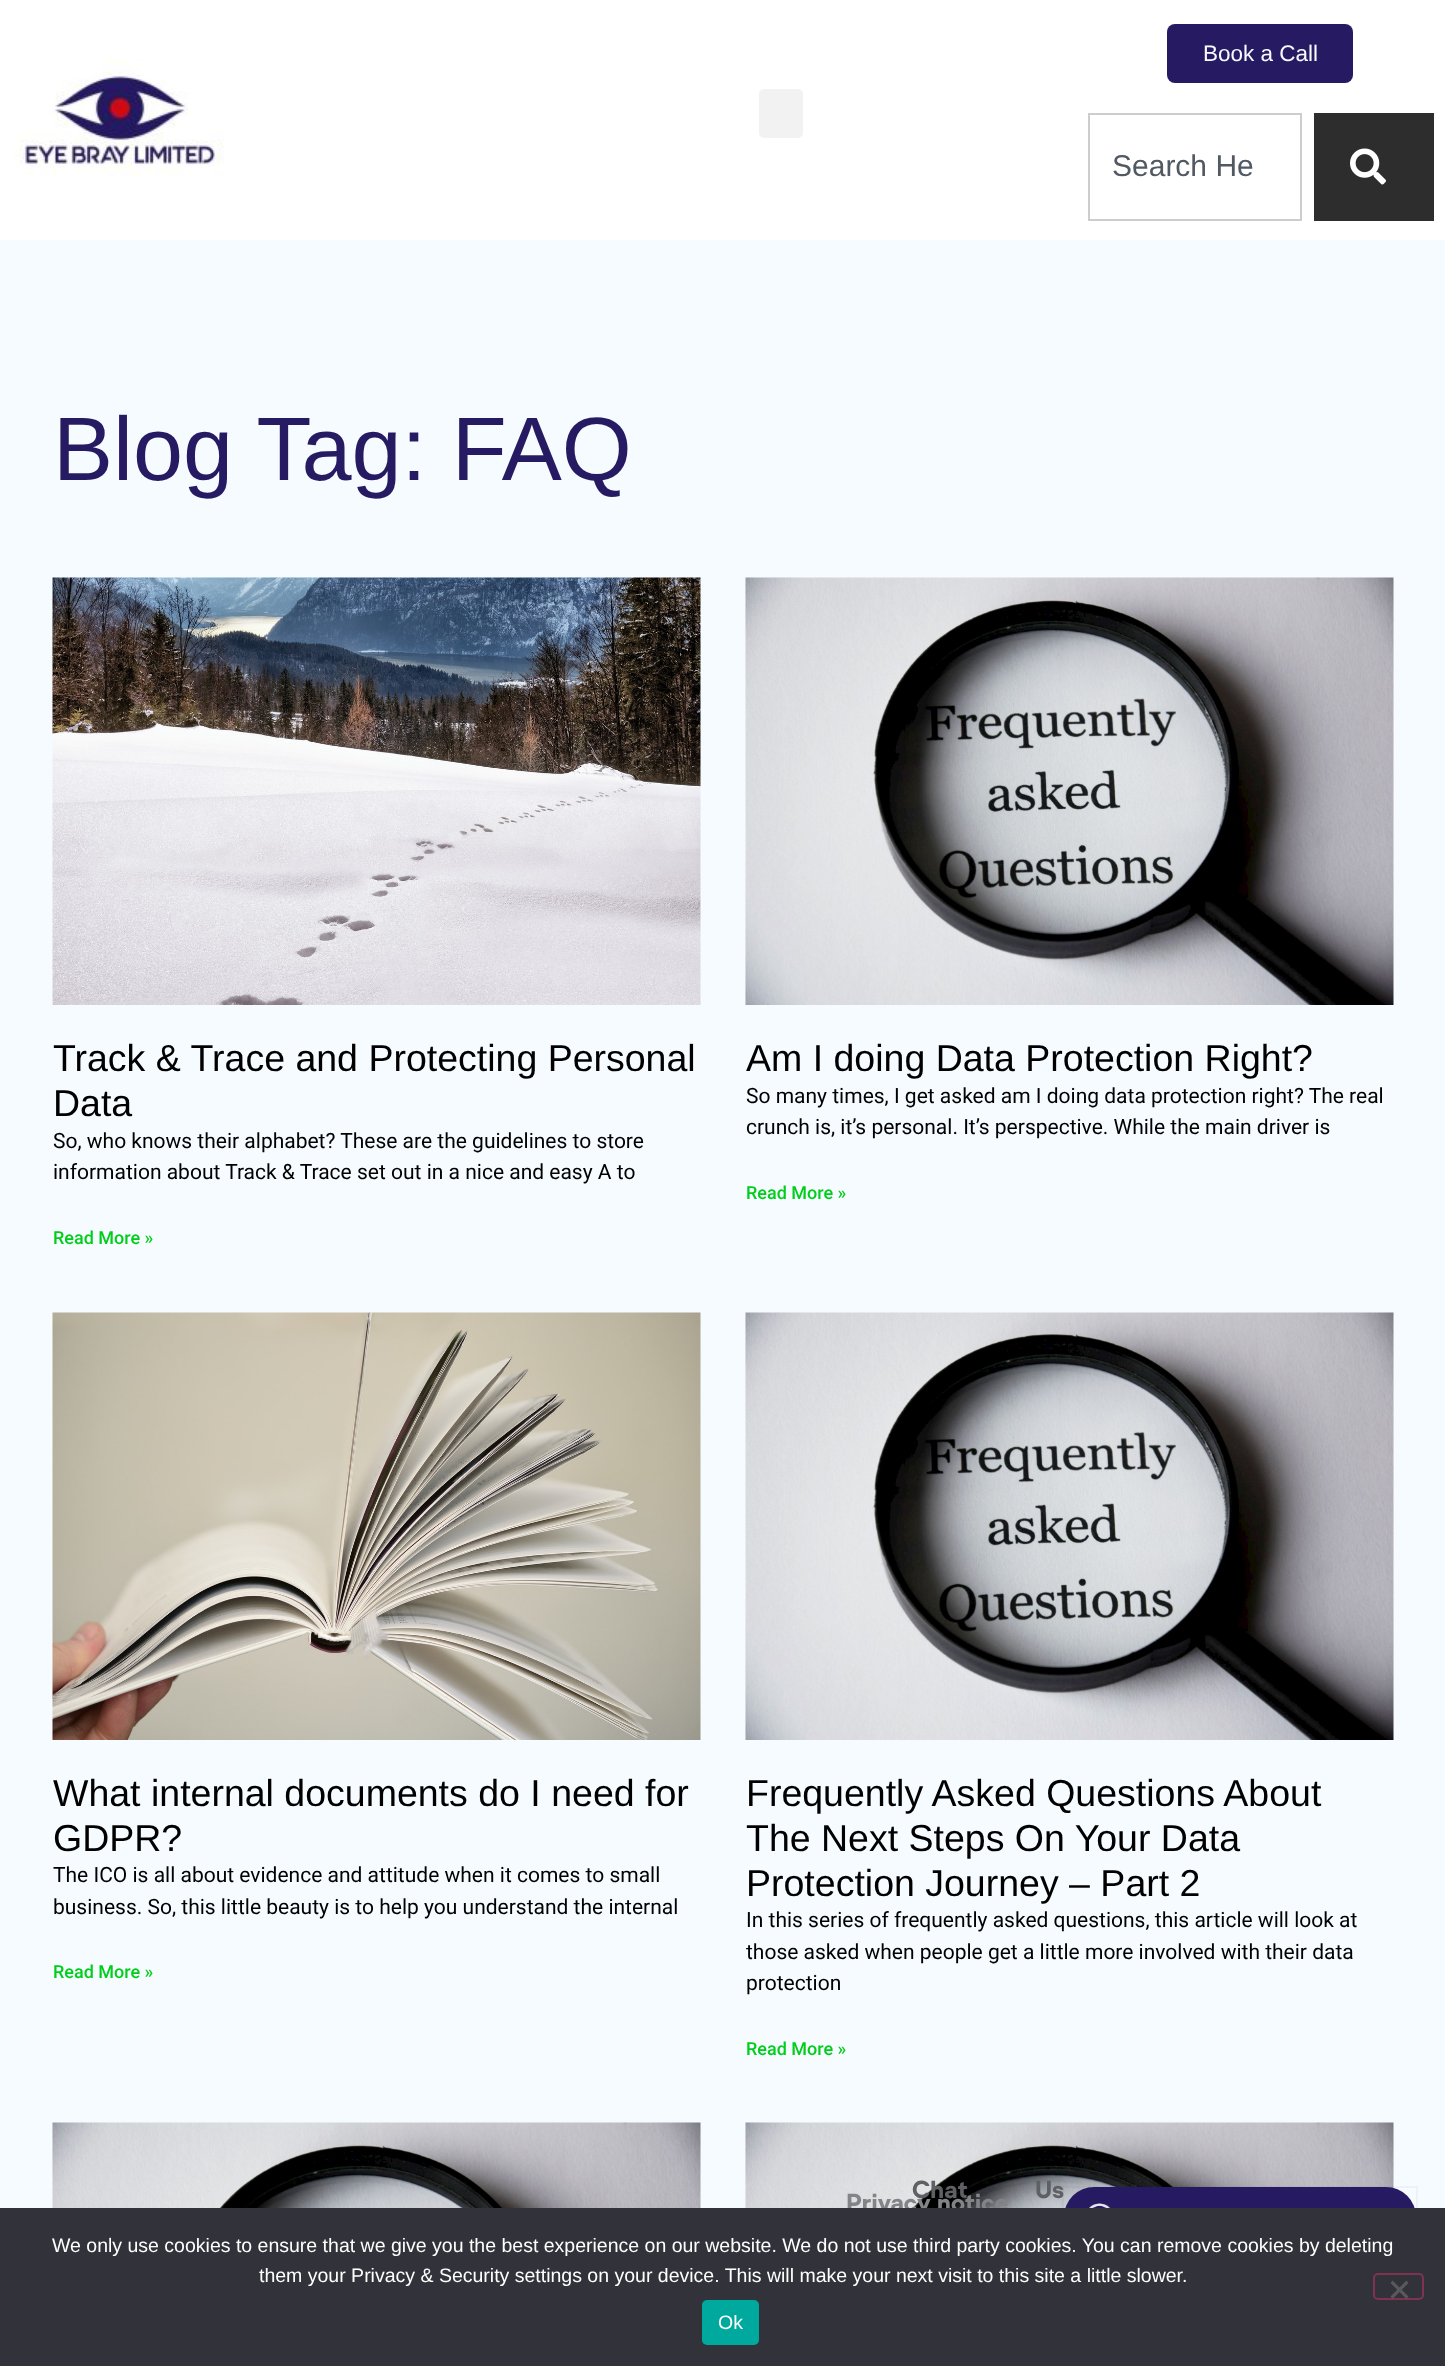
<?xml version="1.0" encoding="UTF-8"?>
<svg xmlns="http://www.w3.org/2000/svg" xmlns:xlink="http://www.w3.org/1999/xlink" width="1445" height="2366">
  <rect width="100%" height="100%" fill="#f5fbff" />
  <rect width="1445" height="240" fill="#ffffff" />
  <image x="14" y="59" width="210" height="117" xlink:href="image1.png" />
  <rect x="759" y="89" width="44" height="49" rx="5" fill="#f2f2f2" />
  <rect x="1167" y="24" width="186" height="59" rx="8" fill="#261b62" />
  <rect x="1089" y="114" width="212" height="106" fill="none" stroke="#cdcdcd" stroke-width="2" />
  <rect x="1314" y="113" width="120" height="108" fill="#2d2d2d" />
  <image x="1350" y="148" width="36" height="37" xlink:href="image2.png" />
  <image x="52" y="577" width="649" height="428" xlink:href="image3.png" />
  <image x="745" y="577" width="649" height="428" xlink:href="image4.png" />
  <image x="52" y="1312" width="649" height="428" xlink:href="image5.png" />
  <image x="745" y="1312" width="649" height="428" xlink:href="image6.png" />
  <image x="52" y="2122" width="649" height="86" xlink:href="image7.png" />
  <image x="745" y="2122" width="649" height="86" xlink:href="image7.png" />
  <rect x="1063" y="2187" width="354" height="61" fill="none" stroke="#161a1e" stroke-opacity="0.04" stroke-width="2" />
  <rect x="1064" y="2187" width="352" height="60" rx="30" fill="#261b62" />
  <image x="1089" y="2203" width="22" height="5" xlink:href="image8.png" />
  <text x="1203" y="61" style="font-family: Liberation Sans; font-size: 22.5px; fill: #f5fbff">Book a Call</text>
  <text x="1112" y="176" style="font-family: Liberation Sans; font-size: 30px; fill: #515962">Search He</text>
  <text x="53" y="480" style="font-family: Liberation Sans; font-size: 90px; fill: #261b62">Blog Tag: FAQ</text>
  <text x="53" y="1071" style="font-family: Liberation Sans; font-size: 37.5px; fill: #000000">Track &amp; Trace and Protecting Personal</text>
  <text x="53" y="1116" style="font-family: Liberation Sans; font-size: 37.5px; fill: #000000">Data</text>
  <text x="53" y="1148" style="font-family: Roboto; font-size: 21px; fill: #000000">So, who knows their alphabet? These are the guidelines to store</text>
  <text x="53" y="1179" style="font-family: Roboto; font-size: 21px; fill: #000000">information about Track &amp; Trace set out in a nice and easy A to</text>
  <text x="53" y="1244" style="font-family: Roboto; font-size: 18px; font-weight: 500; fill: #00ce1b">Read More »</text>
  <text x="746" y="1071" style="font-family: Liberation Sans; font-size: 37.5px; fill: #000000">Am I doing Data Protection Right?</text>
  <text x="746" y="1103" style="font-family: Roboto; font-size: 21px; fill: #000000">So many times, I get asked am I doing data protection right? The real</text>
  <text x="746" y="1134" style="font-family: Roboto; font-size: 21px; fill: #000000">crunch is, it’s personal. It’s perspective. While the main driver is</text>
  <text x="746" y="1199" style="font-family: Roboto; font-size: 18px; font-weight: 500; fill: #00ce1b">Read More »</text>
  <text x="53" y="1806" style="font-family: Liberation Sans; font-size: 37.5px; fill: #000000">What internal documents do I need for</text>
  <text x="53" y="1851" style="font-family: Liberation Sans; font-size: 37.5px; fill: #000000">GDPR?</text>
  <text x="53" y="1882" style="font-family: Roboto; font-size: 21px; fill: #000000">The ICO is all about evidence and attitude when it comes to small</text>
  <text x="53" y="1914" style="font-family: Roboto; font-size: 21px; fill: #000000">business. So, this little beauty is to help you understand the internal</text>
  <text x="53" y="1978" style="font-family: Roboto; font-size: 18px; font-weight: 500; fill: #00ce1b">Read More »</text>
  <text x="746" y="1806" style="font-family: Liberation Sans; font-size: 37.5px; fill: #000000">Frequently Asked Questions About</text>
  <text x="746" y="1851" style="font-family: Liberation Sans; font-size: 37.5px; fill: #000000">The Next Steps On Your Data</text>
  <text x="746" y="1896" style="font-family: Liberation Sans; font-size: 37.5px; fill: #000000">Protection Journey – Part 2</text>
  <text x="746" y="1927" style="font-family: Roboto; font-size: 21px; fill: #000000">In this series of frequently asked questions, this article will look at</text>
  <text x="746" y="1959" style="font-family: Roboto; font-size: 21px; fill: #000000">those asked when people get a little more involved with their data</text>
  <text x="746" y="1990" style="font-family: Roboto; font-size: 21px; fill: #000000">protection</text>
  <text x="746" y="2055" style="font-family: Roboto; font-size: 18px; font-weight: 500; fill: #00ce1b">Read More »</text>
  <text x="912" y="2198" style="font-family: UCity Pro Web; font-size: 24px; font-weight: bold; fill: #5f6064">Chat</text>
  <text x="1035" y="2198" style="font-family: UCity Pro Web; font-size: 24px; font-weight: bold; fill: #5f6064">Us</text>
  <text x="846" y="2211" style="font-family: UCity Pro Web; font-size: 24px; font-weight: bold; fill: #838487">Privacy notice</text>
  <rect y="2208" width="1445" height="158" fill="#32323a" />
  <text x="52" y="2252" style="font-family: Liberation Sans; font-size: 19.5px; fill: #ffffff">We only use cookies to ensure that we give you the best experience on our website. We do not use third party cookies. You can remove cookies by deleting</text>
  <text x="259" y="2282" style="font-family: Liberation Sans; font-size: 19.5px; fill: #ffffff">them your Privacy &amp; Security settings on your device. This will make your next visit to this site a little slower.</text>
  <rect x="1374" y="2274" width="49" height="25" rx="4" fill="none" stroke="#7f3350" stroke-width="2" />
  <path d="M 1406.5 2280.5 l 2 2.5 l -16 16 l -2 -2.5 z" fill="#59595d" />
  <path d="M 1390.5 2283 l 2 -2.5 l 16 16 l -2 2.5 z" fill="#59595d" />
  <rect x="702" y="2300" width="57" height="45" rx="5" fill="#00a99d" />
  <text x="718" y="2329" style="font-family: Liberation Sans; font-size: 19.5px; fill: #ffffff">Ok</text>
</svg>
